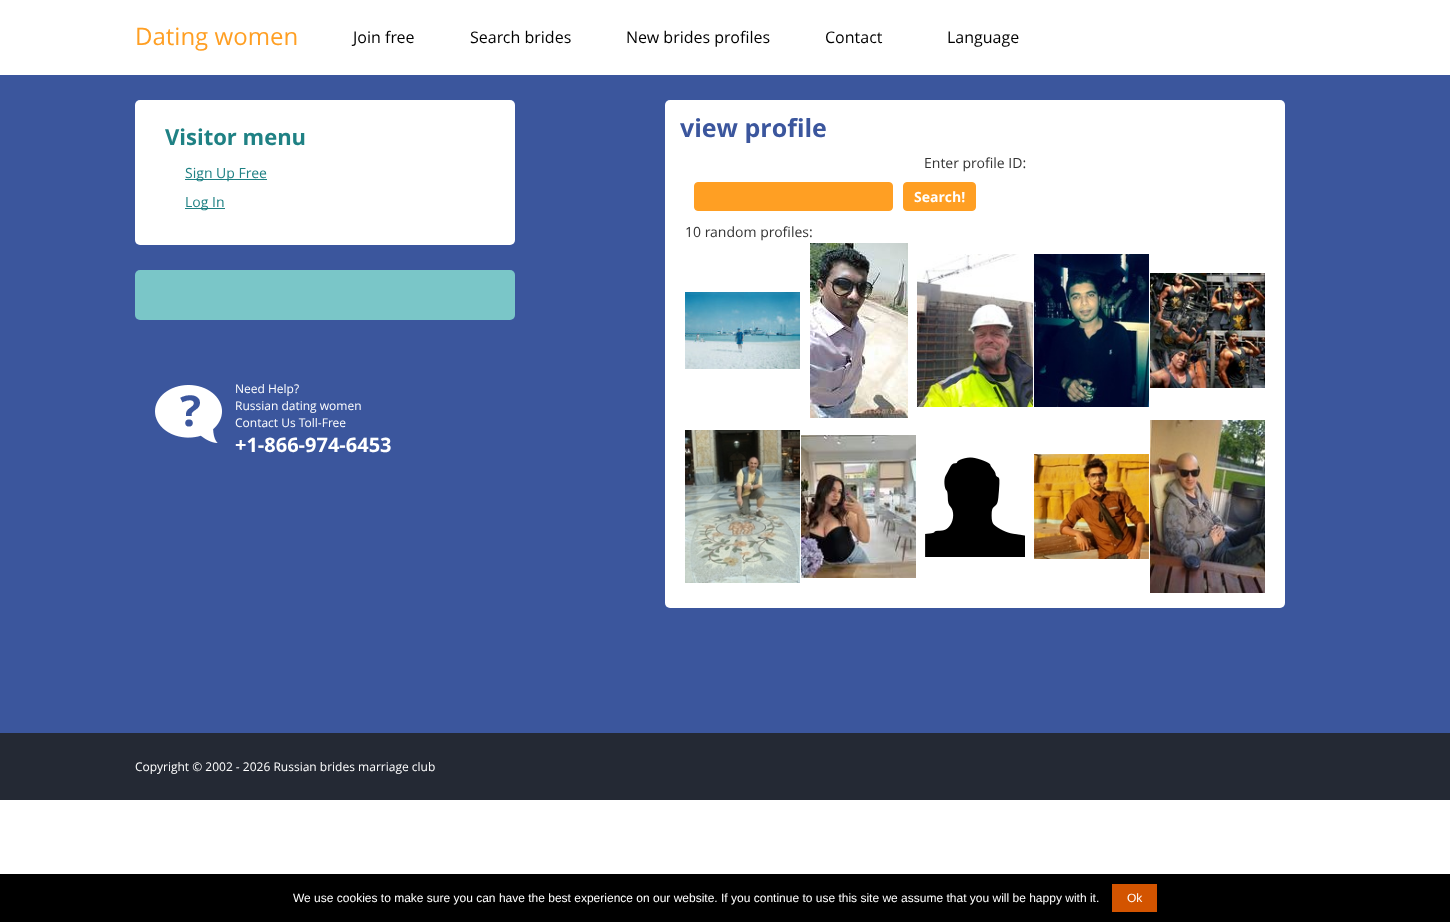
<?xml version="1.0" encoding="UTF-8"?>
<svg xmlns="http://www.w3.org/2000/svg" xmlns:xlink="http://www.w3.org/1999/xlink" width="1450" height="922">
  <rect width="100%" height="100%" fill="#ffffff" />
  <rect y="75" width="1450" height="658" fill="#3b569d" />
  <rect x="135" y="100" width="380" height="145" rx="5" fill="#ffffff" />
  <rect x="185" y="179" width="82" height="1" fill="#1f8184" />
  <rect x="185" y="208" width="40" height="1" fill="#1f8184" />
  <rect x="135" y="270" width="380" height="50" rx="5" fill="#7ac6c8" />
  <image x="155" y="385" width="67" height="58" xlink:href="image1.png" />
  <rect x="665" y="100" width="620" height="508" rx="5" fill="#ffffff" />
  <rect x="694.5" y="182.5" width="198" height="28" rx="3.5" fill="#ff9f23" stroke="#ff9f23" />
  <rect x="903.5" y="182.5" width="72" height="28" rx="3.5" fill="#ff9f23" stroke="#ff9f23" />
  <image x="685" y="292" width="115" height="77" xlink:href="image2.png" />
  <image x="810" y="243" width="98" height="175" xlink:href="image3.png" />
  <image x="917" y="254" width="116" height="153" xlink:href="image4.png" />
  <image x="1034" y="254" width="115" height="153" xlink:href="image5.png" />
  <image x="1150" y="273" width="115" height="115" xlink:href="image6.png" />
  <image x="685" y="430" width="115" height="153" xlink:href="image7.png" />
  <image x="801" y="435" width="115" height="143" xlink:href="image8.png" />
  <image x="925" y="457" width="100" height="100" xlink:href="image9.png" />
  <image x="1034" y="454" width="115" height="105" xlink:href="image10.png" />
  <image x="1150" y="420" width="115" height="173" xlink:href="image11.png" />
  <rect y="733" width="1450" height="67" fill="#242934" />
  <rect y="874" width="1450" height="48" fill="#000000" />
  <rect x="1112" y="884" width="45" height="28" fill="#d35400" />
  <text x="135" y="45" style="font-family: Open Sans; font-size: 24px; fill: #ff9f23">Dating women</text>
  <text x="353" y="43" style="font-family: Open Sans; font-size: 16px; fill: #000000">Join free</text>
  <text x="470" y="43" style="font-family: Open Sans; font-size: 16px; fill: #000000">Search brides</text>
  <text x="626" y="43" style="font-family: Open Sans; font-size: 16px; fill: #000000">New brides profiles</text>
  <text x="825" y="43" style="font-family: Open Sans; font-size: 16px; fill: #000000">Contact</text>
  <text x="947" y="43" style="font-family: Open Sans; font-size: 16px; fill: #000000">Language</text>
  <text x="165" y="145" style="font-family: Open Sans; font-size: 22px; font-weight: bold; fill: #1f8184">Visitor menu</text>
  <text x="185" y="178" style="font-family: Open Sans; font-size: 14px; fill: #1f8184">Sign Up Free</text>
  <text x="185" y="207" style="font-family: Open Sans; font-size: 14px; fill: #1f8184">Log In</text>
  <text x="235" y="393" style="font-family: Open Sans; font-size: 12px; fill: #ffffff">Need Help?</text>
  <text x="235" y="410" style="font-family: Open Sans; font-size: 12px; fill: #ffffff">Russian dating women</text>
  <text x="235" y="427" style="font-family: Open Sans; font-size: 12px; fill: #ffffff">Contact Us Toll-Free</text>
  <text x="235" y="452" style="font-family: Open Sans; font-size: 20px; font-weight: bold; fill: #ffffff">+1-866-974-6453</text>
  <text x="680" y="137" style="font-family: Open Sans; font-size: 25px; font-weight: bold; fill: #3b569d">view profile</text>
  <text x="924" y="168" style="font-family: Open Sans; font-size: 14px; fill: #333333">Enter profile ID:</text>
  <text x="914" y="202" style="font-family: Open Sans; font-size: 14px; font-weight: bold; fill: #ffffff">Search!</text>
  <text x="685" y="237" style="font-family: Open Sans; font-size: 14px; fill: #333333">10 random profiles:</text>
  <text x="135" y="771" style="font-family: Open Sans; font-size: 12px; fill: #ffffff">Copyright © 2002 - 2026 Russian brides marriage club</text>
  <text x="293" y="902" style="font-family: Liberation Sans; font-size: 12px; fill: #ffffff">We use cookies to make sure you can have the best experience on our website. If you continue to use this site we assume that you will be happy with it.</text>
  <text x="1127" y="902" style="font-family: Liberation Sans; font-size: 12px; fill: #ffffff">Ok</text>
</svg>
